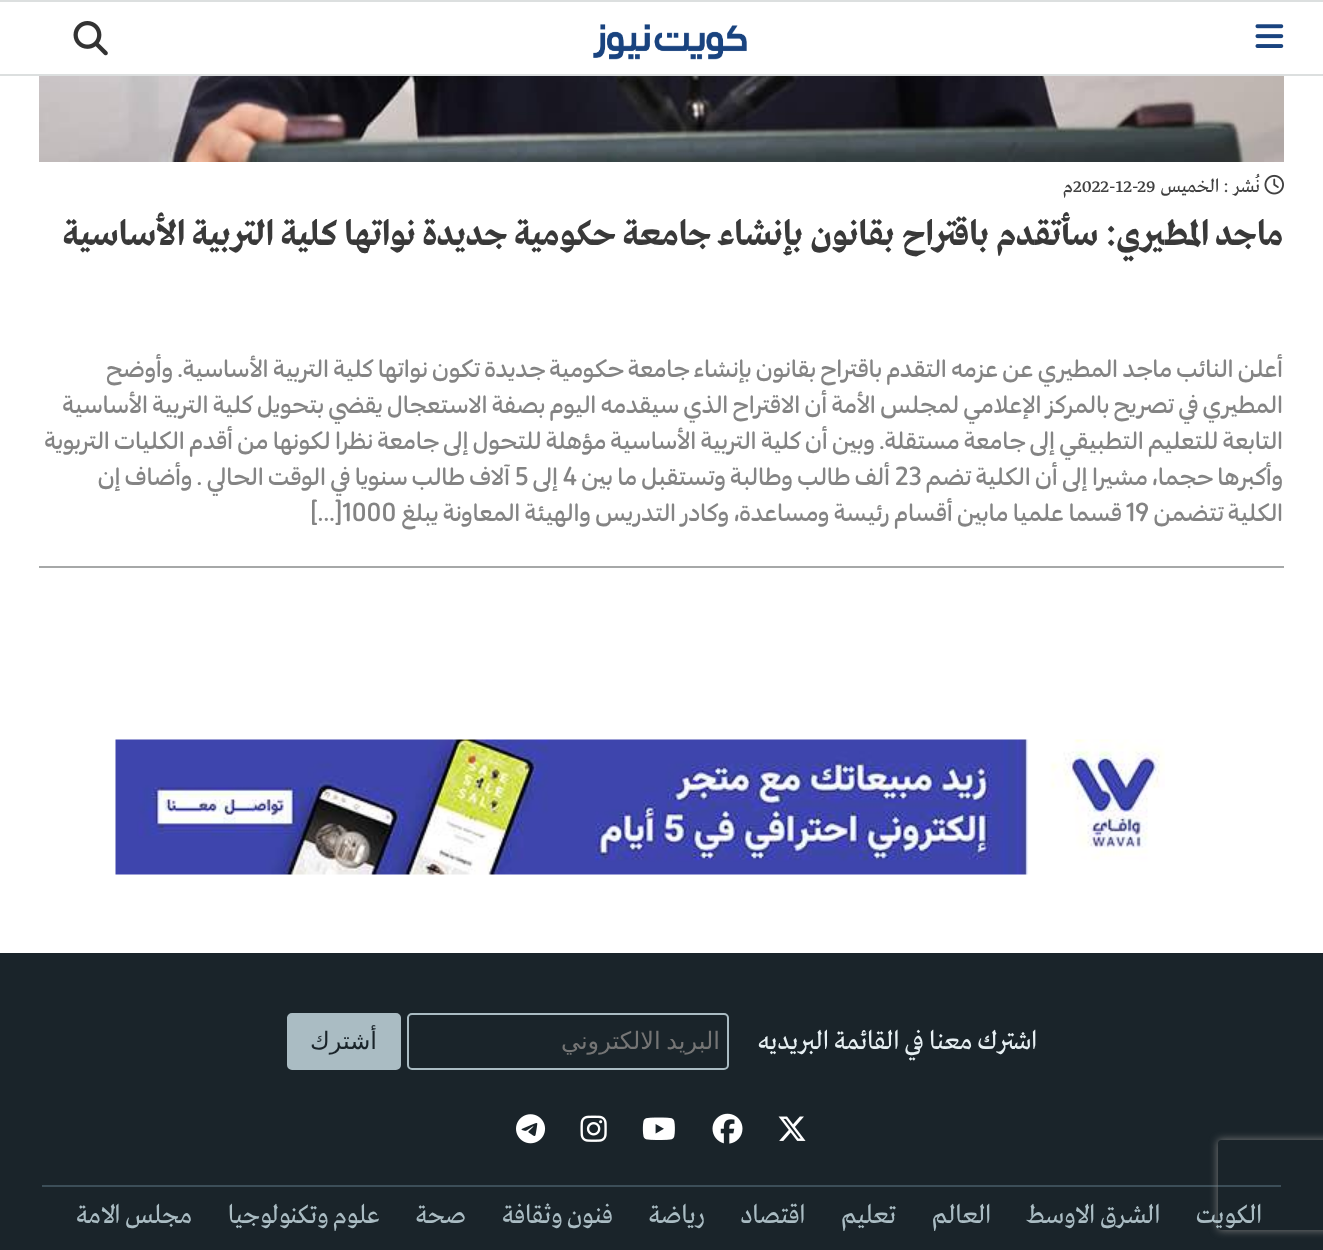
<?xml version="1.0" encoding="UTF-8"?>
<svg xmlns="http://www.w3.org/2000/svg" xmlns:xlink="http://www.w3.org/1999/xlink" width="1323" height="1250">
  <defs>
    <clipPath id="clip1"><path d="M 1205 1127 h 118 v 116 h -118 z m 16 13 h 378 c 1.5 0 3 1.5 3 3 v 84 c 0 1.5 -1.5 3 -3 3 h -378 c -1.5 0 -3 -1.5 -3 -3 v -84 c 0 -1.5 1.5 -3 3 -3 z" clip-rule="evenodd" /></clipPath>
  </defs>
  <rect width="100%" height="100%" fill="#ffffff" />
  <rect width="1323" height="2" fill="#dcdfdf" />
  <rect y="74" width="1323" height="2" fill="#dcdfdf" />
  <image x="1255" y="24" width="29" height="24" xlink:href="image1.png" />
  <image x="593" y="24" width="154" height="36" xlink:href="image2.png" />
  <image x="73" y="21" width="35" height="35" xlink:href="image3.png" />
  <rect x="39" y="566" width="1245" height="2" fill="#a6a8a8" />
  <image x="39" y="76" width="1245" height="86" xlink:href="image4.png" />
  <image x="1264" y="174" width="20" height="21" xlink:href="image5.png" />
  <image x="115" y="739" width="1050" height="136" xlink:href="image6.png" />
  <rect y="953" width="1323" height="297" fill="#1a242a" />
  <rect x="408" y="1014" width="320" height="55" rx="4" fill="none" stroke="#aabcc3" stroke-width="2" />
  <rect x="288" y="1014" width="112" height="55" rx="4" fill="#aabcc3" stroke="#aabcc3" stroke-width="2" />
  <image x="778" y="1116" width="28" height="25" xlink:href="image7.png" />
  <image x="712" y="1113" width="31" height="31" xlink:href="image8.png" />
  <image x="642" y="1117" width="33" height="23" xlink:href="image9.png" />
  <image x="580" y="1115" width="27" height="27" xlink:href="image10.png" />
  <image x="516" y="1114" width="30" height="30" xlink:href="image11.png" />
  <rect x="42" y="1185" width="1239" height="2" fill="#3c4e58" />
  <g clip-path="url(#clip1)">
    <rect x="1218" y="1140" width="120" height="90" rx="3" fill="#808080" filter="blur(4px)" />
  </g>
  <text x="1260" y="192" style="font-family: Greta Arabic; font-size: 19.5px; direction: rtl; fill: #404040">نُشر :</text>
  <text x="1219" y="192" style="font-family: Greta Arabic; font-size: 19.5px; direction: rtl; fill: #404040">الخميس</text>
  <text x="1073" y="192" style="font-family: Greta Arabic; font-size: 19.5px; fill: #404040">2022-12-29</text>
  <text x="1073" y="192" style="font-family: Greta Arabic; font-size: 19.5px; direction: rtl; fill: #404040">م</text>
  <text x="1283" y="245" style="font-family: Greta Arabic; font-size: 36px; font-weight: bold; direction: rtl; fill: #393939">ماجد المطيري: سأتقدم باقتراح بقانون بإنشاء جامعة حكومية جديدة نواتها كلية التربية الأساسية</text>
  <text x="1283" y="377" style="font-family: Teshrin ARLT; font-size: 24px; font-weight: 500; direction: rtl; fill: #848484">أعلن النائب ماجد المطيري عن عزمه التقدم باقتراح بقانون بإنشاء جامعة حكومية جديدة تكون نواتها كلية التربية الأساسية. وأوضح</text>
  <text x="1283" y="413" style="font-family: Teshrin ARLT; font-size: 24px; font-weight: 500; direction: rtl; fill: #848484">المطيري في تصريح بالمركز الإعلامي لمجلس الأمة أن الاقتراح الذي سيقدمه اليوم بصفة الاستعجال يقضي بتحويل كلية التربية الأساسية</text>
  <text x="1283" y="449" style="font-family: Teshrin ARLT; font-size: 24px; font-weight: 500; direction: rtl; fill: #848484">التابعة للتعليم التطبيقي إلى جامعة مستقلة. وبين أن كلية التربية الأساسية مؤهلة للتحول إلى جامعة نظرا لكونها من أقدم الكليات التربوية</text>
  <text x="1283" y="485" style="font-family: Teshrin ARLT; font-size: 24px; font-weight: 500; direction: rtl; fill: #848484">وأكبرها حجما، مشيرا إلى أن الكلية تضم</text>
  <text x="895" y="485" style="font-family: Teshrin ARLT; font-size: 24px; font-weight: 500; fill: #848484">23</text>
  <text x="890" y="485" style="font-family: Teshrin ARLT; font-size: 24px; font-weight: 500; direction: rtl; fill: #848484">ألف طالب وطالبة وتستقبل ما بين</text>
  <text x="563" y="485" style="font-family: Teshrin ARLT; font-size: 24px; font-weight: 500; fill: #848484">4</text>
  <text x="558" y="485" style="font-family: Teshrin ARLT; font-size: 24px; font-weight: 500; direction: rtl; fill: #848484">إلى</text>
  <text x="515" y="485" style="font-family: Teshrin ARLT; font-size: 24px; font-weight: 500; fill: #848484">5</text>
  <text x="510" y="485" style="font-family: Teshrin ARLT; font-size: 24px; font-weight: 500; direction: rtl; fill: #848484">آلاف طالب سنويا في الوقت الحالي . وأضاف إن</text>
  <text x="1283" y="521" style="font-family: Teshrin ARLT; font-size: 24px; font-weight: 500; direction: rtl; fill: #848484">الكلية تتضمن</text>
  <text x="1126" y="521" style="font-family: Teshrin ARLT; font-size: 24px; font-weight: 500; fill: #848484">19</text>
  <text x="1122" y="521" style="font-family: Teshrin ARLT; font-size: 24px; font-weight: 500; direction: rtl; fill: #848484">قسما علميا مابين أقسام رئيسة ومساعدة، وكادر التدريس والهيئة المعاونة يبلغ</text>
  <text x="310" y="521" style="font-family: Teshrin ARLT; font-size: 24px; font-weight: 500; fill: #848484">[…]1000</text>
  <text x="1037" y="1049" style="font-family: Greta Arabic; font-size: 27px; direction: rtl; fill: #e7f0f3">اشترك معنا في القائمة البريديه</text>
  <text x="720" y="1049" word-spacing="-2" style="font-family: DejaVu Sans; font-size: 24px; direction: rtl; fill: #757575">البريد الالكتروني</text>
  <text x="377" y="1049" style="font-family: DejaVu Sans; font-size: 24px; direction: rtl; fill: #1a242a">أشترك</text>
  <text x="1262" y="1223" style="font-family: Greta Arabic; font-size: 27px; direction: rtl; fill: #aabcc3">الكويت</text>
  <text x="1160" y="1223" style="font-family: Greta Arabic; font-size: 27px; direction: rtl; fill: #aabcc3">الشرق الاوسط</text>
  <text x="991" y="1223" style="font-family: Greta Arabic; font-size: 27px; direction: rtl; fill: #aabcc3">العالم</text>
  <text x="896" y="1223" style="font-family: Greta Arabic; font-size: 27px; direction: rtl; fill: #aabcc3">تعليم</text>
  <text x="805" y="1223" style="font-family: Greta Arabic; font-size: 27px; direction: rtl; fill: #aabcc3">اقتصاد</text>
  <text x="705" y="1223" style="font-family: Greta Arabic; font-size: 27px; direction: rtl; fill: #aabcc3">رياضة</text>
  <text x="613" y="1223" style="font-family: Greta Arabic; font-size: 27px; direction: rtl; fill: #aabcc3">فنون وثقافة</text>
  <text x="466" y="1223" style="font-family: Greta Arabic; font-size: 27px; direction: rtl; fill: #aabcc3">صحة</text>
  <text x="380" y="1223" style="font-family: Greta Arabic; font-size: 27px; direction: rtl; fill: #aabcc3">علوم وتكنولوجيا</text>
  <text x="192" y="1223" style="font-family: Greta Arabic; font-size: 27px; direction: rtl; fill: #aabcc3">مجلس الامة</text>
</svg>
